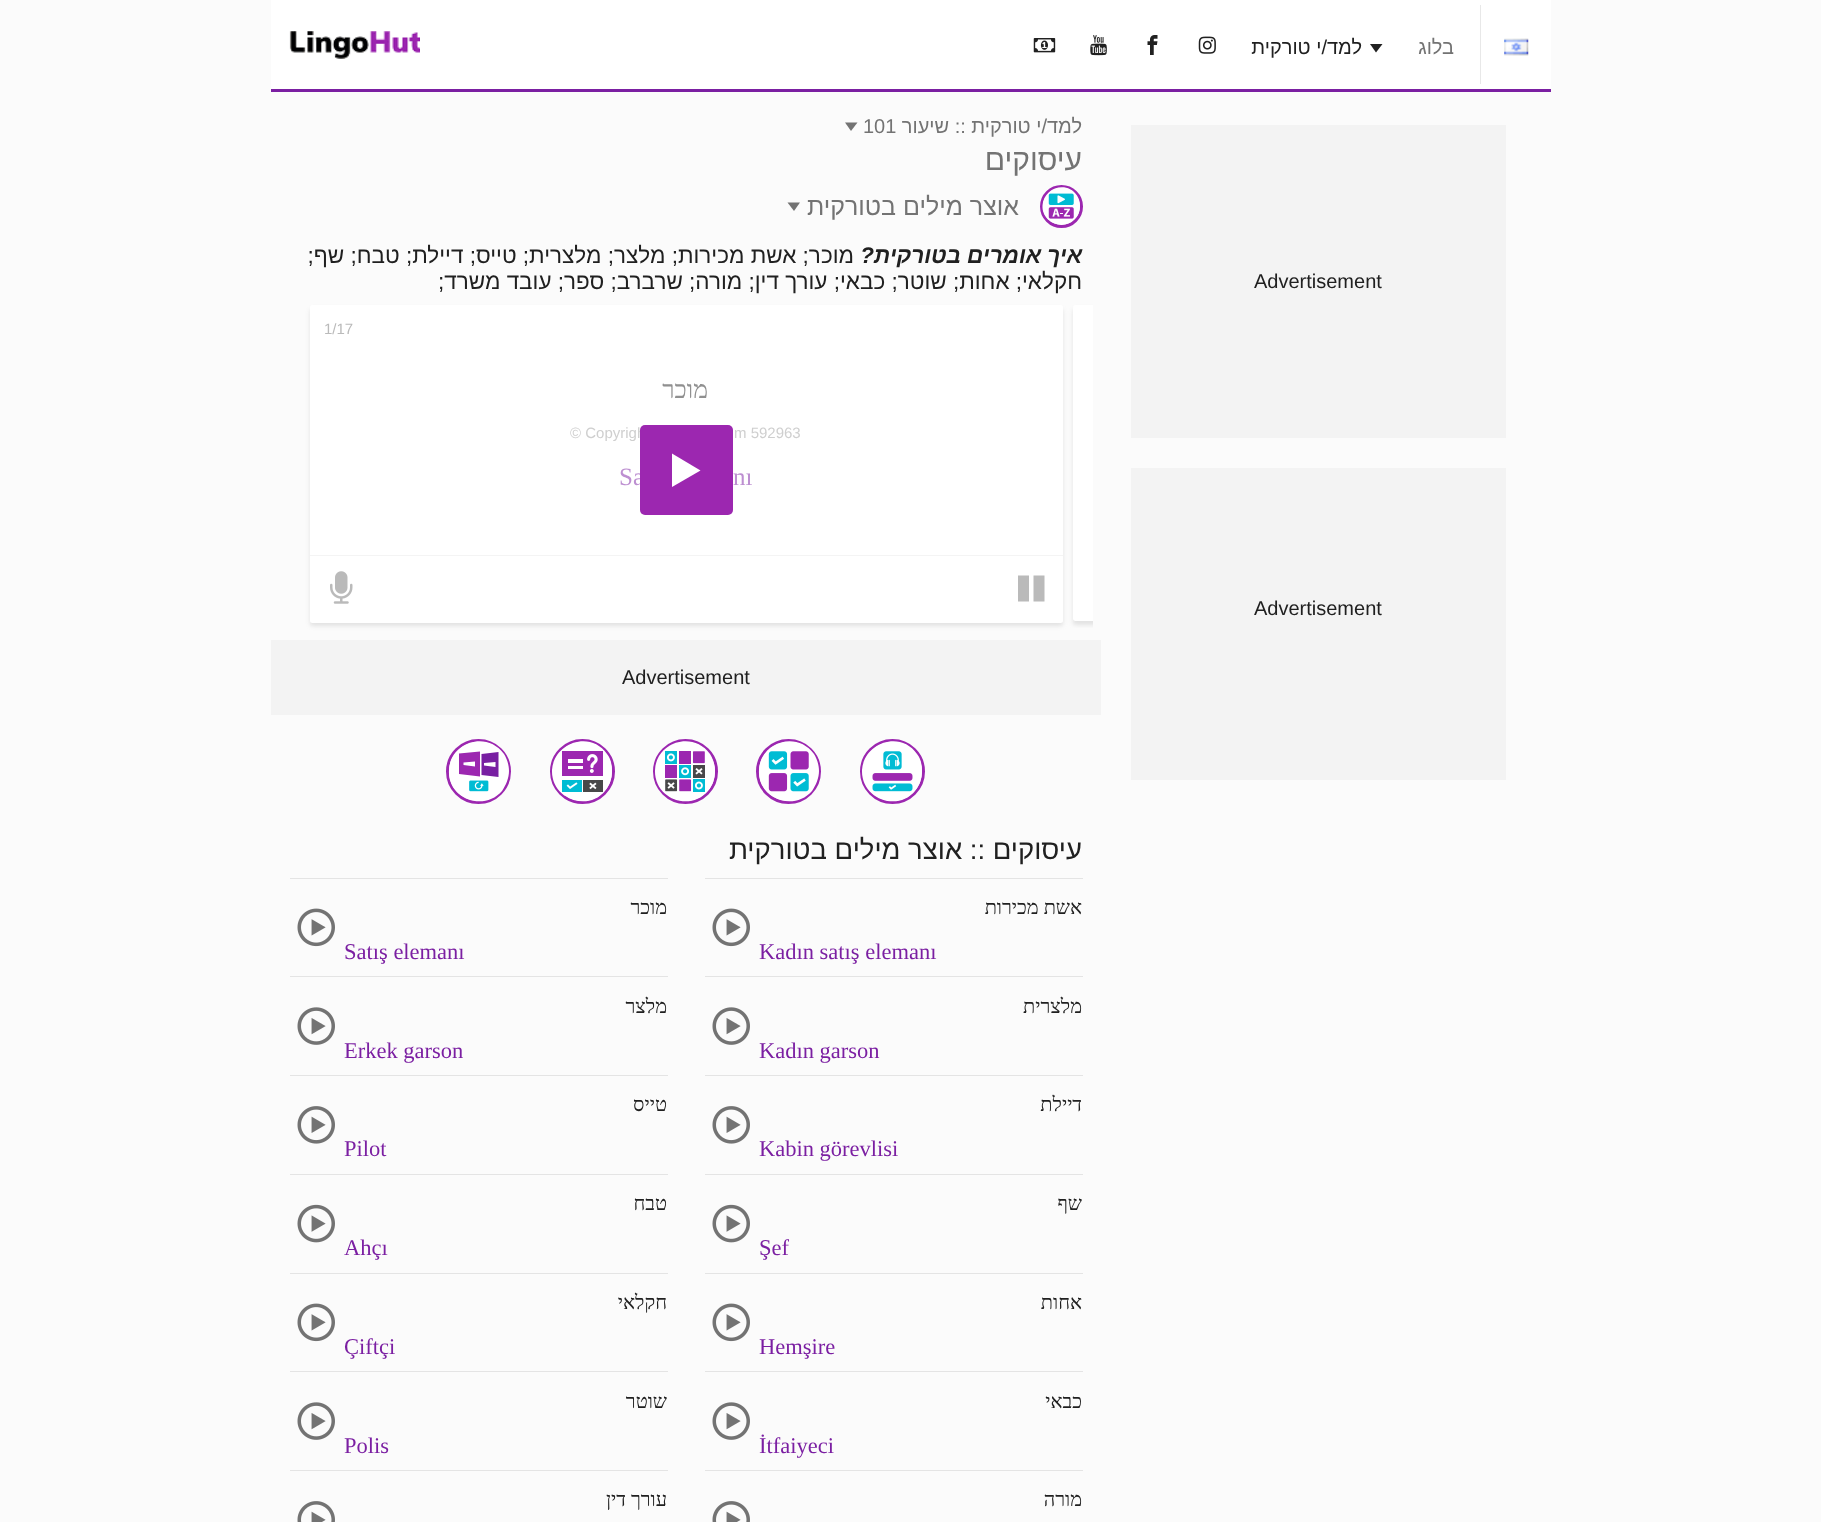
<?xml version="1.0" encoding="UTF-8"?>
<svg xmlns="http://www.w3.org/2000/svg" xmlns:xlink="http://www.w3.org/1999/xlink" width="1821" height="1522">
  <defs>
    <clipPath id="clip1"><rect x="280" y="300" width="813" height="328" /></clipPath>
  </defs>
  <rect width="100%" height="100%" fill="#fbfbfb" />
  <rect x="1131" y="468" width="375" height="312" fill="#f3f3f3" />
  <rect x="1131" y="125" width="375" height="313" fill="#f3f3f3" />
  <rect x="271" y="640" width="830" height="75" fill="#f3f3f3" />
  <rect x="271" width="1280" height="89" fill="#ffffff" />
  <rect x="271" y="89" width="1280" height="3" fill="#7b1fa2" />
  <rect x="1480" y="5" width="1" height="79" fill="#e8e8e8" />
  <image x="1504" y="38" width="25" height="18" xlink:href="image1.png" />
  <path d="M 1370 44 h 12.5 l -6.5 8.5 z" fill="#212121" />
  <image x="1198" y="36" width="18" height="18" xlink:href="image2.png" />
  <image x="1147" y="35" width="11" height="20" xlink:href="image3.png" />
  <image x="1090" y="35" width="17" height="21" xlink:href="image4.png" />
  <image x="1033" y="38" width="23" height="15" xlink:href="image5.png" />
  <image x="289" y="31" width="131" height="28" xlink:href="image6.png" />
  <path d="M 845 122.5 h 12.5 l -6.5 8.5 z" fill="#737373" />
  <circle cx="1061.5" cy="206.5" r="20" fill="none" stroke="#9c27b0" stroke-width="3" />
  <path d="M 1080 206 c 0 4.5 -1.5 9 -4.5 12 c -11 13.5 -34 5 -33 -12.5 c 1 -17.5 24 -25.5 34.5 -10 c 2 3 3 7 3 10.5 z" fill="#ffffff" />
  <image x="1048" y="193" width="26" height="12" xlink:href="image7.png" />
  <image x="1057" y="195" width="8" height="9" xlink:href="image8.png" />
  <image x="1048" y="207" width="26" height="12" xlink:href="image9.png" />
  <image x="1063" y="208" width="7" height="9" xlink:href="image10.png" />
  <path d="M 1063 213 v 1 h -3 v -1 z" fill="#ffffff" />
  <image x="1052" y="208" width="8" height="9" xlink:href="image11.png" />
  <path d="M 787.5 202.5 h 12.5 l -6 8.5 z" fill="#737373" />
  <g clip-path="url(#clip1)">
    <rect x="1073" y="309" width="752" height="316" rx="2.5" fill="#808080" fill-opacity="0.2" filter="blur(2px)" />
  </g>
  <path d="M 1075.5 305 h 17.5 v 316 h -17.5 c -1.5 0 -2.5 -1 -2.5 -2.5 v -311 c 0 -1.5 1 -2.5 2.5 -2.5 z" fill="#ffffff" />
  <rect x="310" y="309" width="753" height="317" rx="2.5" fill="#808080" fill-opacity="0.2" filter="blur(2px)" />
  <rect x="310" y="305" width="753" height="318" rx="2.5" fill="#ffffff" />
  <rect x="310" y="555" width="753" height="1" fill="#f4f4f4" />
  <path d="M 1018 575.5 h 11 v 26 h -11 z m 15.5 0 h 11 v 26 h -11 z" fill="#bababa" />
  <image x="330" y="571" width="23" height="33" xlink:href="image12.png" />
  <circle cx="892.5" cy="771.5" r="31" fill="none" stroke="#9c27b0" stroke-width="3" />
  <path d="M 922 771 c 0 7 -2 14 -7 20 c -17 21 -54 8 -53 -21 c 2 -28 39 -40 55 -16 c 4 5 5 11 5 17 z" fill="#ffffff" />
  <image x="883" y="751" width="19" height="19" xlink:href="image13.png" />
  <image x="888" y="759" width="2" height="8" xlink:href="image16.png" />
  <image x="885" y="753" width="15" height="14" xlink:href="image14.png" />
  <image x="895" y="759" width="2" height="8" xlink:href="image15.png" />
  <image x="872" y="773" width="41" height="8" xlink:href="image17.png" />
  <image x="872" y="783" width="41" height="9" xlink:href="image18.png" />
  <image x="888" y="784" width="9" height="6" xlink:href="image19.png" />
  <circle cx="788.5" cy="771.5" r="31" fill="none" stroke="#9c27b0" stroke-width="3" />
  <path d="M 819 771 c 0 7 -3 14 -7 20 c -18 21 -55 8 -53 -21 c 1 -28 38 -40 55 -16 c 3 5 5 11 5 17 z" fill="#ffffff" />
  <image x="790" y="751" width="19" height="19" xlink:href="image20.png" />
  <image x="768" y="751" width="20" height="19" xlink:href="image21.png" />
  <image x="771" y="756" width="13" height="9" xlink:href="image22.png" />
  <image x="790" y="773" width="19" height="19" xlink:href="image23.png" />
  <image x="768" y="773" width="20" height="19" xlink:href="image24.png" />
  <image x="793" y="778" width="13" height="9" xlink:href="image25.png" />
  <circle cx="685.5" cy="771.5" r="31" fill="none" stroke="#9c27b0" stroke-width="3" />
  <path d="M 715 771 c 0 7 -2 14 -7 20 c -18 21 -54 8 -53 -21 c 1 -28 38 -40 55 -16 c 3 5 5 11 5 17 z" fill="#ffffff" />
  <image x="692" y="751" width="13" height="13" xlink:href="image26.png" />
  <rect x="679" y="751" width="12" height="13" fill="#9c27b0" />
  <rect x="665" y="751" width="12" height="13" fill="#00bcd4" />
  <image x="666" y="753" width="9" height="9" xlink:href="image27.png" />
  <rect x="693" y="765" width="12" height="13" fill="#484849" />
  <rect x="679" y="765" width="12" height="13" fill="#00bcd4" />
  <rect x="665" y="765" width="12" height="13" fill="#9c27b0" />
  <image x="695" y="768" width="8" height="7" xlink:href="image28.png" />
  <image x="681" y="767" width="8" height="9" xlink:href="image29.png" />
  <rect x="693" y="779" width="12" height="13" fill="#00bcd4" />
  <image x="679" y="779" width="13" height="13" xlink:href="image30.png" />
  <image x="665" y="779" width="13" height="13" xlink:href="image31.png" />
  <image x="695" y="781" width="8" height="9" xlink:href="image32.png" />
  <image x="667" y="782" width="8" height="7" xlink:href="image33.png" />
  <circle cx="582.5" cy="771.5" r="31" fill="none" stroke="#9c27b0" stroke-width="3" />
  <path d="M 612 771 c 0 7 -2 14 -7 20 c -17 21 -54 8 -53 -21 c 2 -28 39 -40 55 -16 c 4 5 5 11 5 17 z" fill="#ffffff" />
  <rect x="562" y="751" width="41" height="25" fill="#9c27b0" />
  <image x="587" y="754" width="11" height="15" xlink:href="image34.png" />
  <rect x="568" y="759" width="15" height="4" fill="#ffffff" />
  <rect x="568" y="766" width="15" height="3" fill="#ffffff" />
  <image x="589" y="769" width="5" height="4" xlink:href="image35.png" />
  <rect x="583" y="780" width="20" height="12" fill="#484849" />
  <rect x="562" y="780" width="20" height="12" fill="#00bcd4" />
  <image x="589" y="782" width="8" height="8" xlink:href="image36.png" />
  <image x="566" y="782" width="12" height="7" xlink:href="image37.png" />
  <circle cx="478.5" cy="771.5" r="31" fill="none" stroke="#9c27b0" stroke-width="3" />
  <path d="M 509 771 c 0 7 -3 14 -7 20 c -18 21 -55 8 -53 -21 c 1 -28 38 -40 55 -16 c 3 5 5 11 5 17 z" fill="#ffffff" />
  <path d="M 498.5 752 v 25 l -17 -2 v -21 z" fill="#781fa2" />
  <path d="M 480 776.5 l -21 -2.5 v -20.5 l 21 -2 z" fill="#9c27b0" />
  <path d="M 463.5 762.5 l 11.5 -1 v 5 l -11.5 -1.5 z m 20.5 0.5 l 11.5 -1 v 5 l -11.5 -1.5 z" fill="#ffffff" />
  <image x="469" y="780" width="20" height="12" xlink:href="image38.png" />
  <image x="474" y="781" width="10" height="9" xlink:href="image39.png" />
  <rect x="705" y="878" width="378" height="1" fill="#e4e4e4" />
  <image x="712" y="908" width="38" height="39" xlink:href="image40.png" />
  <rect x="290" y="878" width="378" height="1" fill="#e4e4e4" />
  <image x="297" y="908" width="38" height="39" xlink:href="image40.png" />
  <rect x="705" y="976" width="378" height="1" fill="#e4e4e4" />
  <image x="712" y="1007" width="38" height="38" xlink:href="image41.png" />
  <rect x="290" y="976" width="378" height="1" fill="#e4e4e4" />
  <image x="297" y="1007" width="38" height="38" xlink:href="image41.png" />
  <rect x="705" y="1075" width="378" height="1" fill="#e4e4e4" />
  <image x="712" y="1106" width="38" height="38" xlink:href="image42.png" />
  <rect x="290" y="1075" width="378" height="1" fill="#e4e4e4" />
  <image x="297" y="1106" width="38" height="38" xlink:href="image42.png" />
  <rect x="705" y="1174" width="378" height="1" fill="#e4e4e4" />
  <image x="712" y="1204" width="38" height="39" xlink:href="image43.png" />
  <rect x="290" y="1174" width="378" height="1" fill="#e4e4e4" />
  <image x="297" y="1204" width="38" height="39" xlink:href="image43.png" />
  <rect x="705" y="1273" width="378" height="1" fill="#e4e4e4" />
  <image x="712" y="1303" width="38" height="39" xlink:href="image40.png" />
  <rect x="290" y="1273" width="378" height="1" fill="#e4e4e4" />
  <image x="297" y="1303" width="38" height="39" xlink:href="image40.png" />
  <rect x="705" y="1371" width="378" height="1" fill="#e4e4e4" />
  <image x="712" y="1402" width="38" height="38" xlink:href="image41.png" />
  <rect x="290" y="1371" width="378" height="1" fill="#e4e4e4" />
  <image x="297" y="1402" width="38" height="38" xlink:href="image41.png" />
  <rect x="705" y="1470" width="378" height="1" fill="#e4e4e4" />
  <image x="712" y="1501" width="38" height="21" xlink:href="image44.png" />
  <rect x="290" y="1470" width="378" height="1" fill="#e4e4e4" />
  <image x="297" y="1501" width="38" height="21" xlink:href="image44.png" />
  <text x="1454" y="54" style="font-family: Liberation Sans; font-size: 20px; direction: rtl; fill: #737373">בלוג</text>
  <text x="1362" y="54" style="font-family: Liberation Sans; font-size: 20px; direction: rtl; fill: #202020">למד/י טורקית</text>
  <text x="1254" y="288" style="font-family: Liberation Sans; font-size: 20px; fill: #202020">Advertisement</text>
  <text x="1254" y="615" style="font-family: Liberation Sans; font-size: 20px; fill: #202020">Advertisement</text>
  <text x="1082" y="133" style="font-family: Liberation Sans; font-size: 20px; direction: rtl; fill: #737373">למד/י טורקית :: שיעור</text>
  <text x="863" y="133" style="font-family: Liberation Sans; font-size: 20px; fill: #737373">101</text>
  <text x="1082" y="170" style="font-family: Liberation Sans; font-size: 30px; direction: rtl; fill: #737373">עיסוקים</text>
  <text x="1019" y="215" style="font-family: Liberation Sans; font-size: 25px; direction: rtl; fill: #737373">אוצר מילים בטורקית</text>
  <text x="1082" y="263" style="font-family: Liberation Sans; font-size: 22.5px; font-weight: bold; font-style: italic; direction: rtl; fill: #202020">איך אומרים בטורקית?</text>
  <text x="854" y="263" style="font-family: Liberation Sans; font-size: 22.5px; direction: rtl; fill: #202020">מוכר; אשת מכירות; מלצר; מלצרית; טייס; דיילת; טבח; שף;</text>
  <text x="1082" y="289" style="font-family: Liberation Sans; font-size: 22.5px; direction: rtl; fill: #202020">חקלאי; אחות; שוטר; כבאי; עורך דין; מורה; שרברב; ספר; עובד משרד;</text>
  <text x="324" y="334" style="font-family: Liberation Sans; font-size: 15px; fill: #bababa">1/17</text>
  <text x="708" y="398" style="font-family: Liberation Serif; font-size: 25px; direction: rtl; fill: #909090">מוכר</text>
  <text x="734" y="438" style="font-family: Liberation Sans; font-size: 15px; fill: #cfcfcf">m 592963</text>
  <text x="570" y="438" style="font-family: Liberation Sans; font-size: 15px; fill: #cfcfcf">© Copyrigh</text>
  <text x="733" y="485" style="font-family: Liberation Serif; font-size: 25px; fill: #bd8fd1">nı</text>
  <text x="619" y="485" style="font-family: Liberation Serif; font-size: 25px; fill: #bd8fd1">Sa</text>
  <rect x="640" y="425" width="93" height="90" rx="5" fill="#9c27b0" />
  <path d="M 672 453.5 l 28.5 17 l -28.5 16.5 z" fill="#ffffff" />
  <text x="622" y="684" style="font-family: Liberation Sans; font-size: 20px; fill: #202020">Advertisement</text>
  <text x="1082" y="859" style="font-family: Liberation Sans; font-size: 27.5px; direction: rtl; fill: #202020">עיסוקים :: אוצר מילים בטורקית</text>
  <text x="1082" y="914" style="font-family: Liberation Serif; font-size: 20px; direction: rtl; fill: #202020">אשת מכירות</text>
  <text x="759" y="959" style="font-family: Liberation Serif; font-size: 22.5px; fill: #7b1fa2">Kadın satış elemanı</text>
  <text x="667" y="914" style="font-family: Liberation Serif; font-size: 20px; direction: rtl; fill: #202020">מוכר</text>
  <text x="344" y="959" style="font-family: Liberation Serif; font-size: 22.5px; fill: #7b1fa2">Satış elemanı</text>
  <text x="1082" y="1013" style="font-family: Liberation Serif; font-size: 20px; direction: rtl; fill: #202020">מלצרית</text>
  <text x="759" y="1058" style="font-family: Liberation Serif; font-size: 22.5px; fill: #7b1fa2">Kadın garson</text>
  <text x="667" y="1013" style="font-family: Liberation Serif; font-size: 20px; direction: rtl; fill: #202020">מלצר</text>
  <text x="344" y="1058" style="font-family: Liberation Serif; font-size: 22.5px; fill: #7b1fa2">Erkek garson</text>
  <text x="1082" y="1111" style="font-family: Liberation Serif; font-size: 20px; direction: rtl; fill: #202020">דיילת</text>
  <text x="759" y="1156" style="font-family: Liberation Serif; font-size: 22.5px; fill: #7b1fa2">Kabin görevlisi</text>
  <text x="667" y="1111" style="font-family: Liberation Serif; font-size: 20px; direction: rtl; fill: #202020">טייס</text>
  <text x="344" y="1156" style="font-family: Liberation Serif; font-size: 22.5px; fill: #7b1fa2">Pilot</text>
  <text x="1082" y="1210" style="font-family: Liberation Serif; font-size: 20px; direction: rtl; fill: #202020">שף</text>
  <text x="759" y="1255" style="font-family: Liberation Serif; font-size: 22.5px; fill: #7b1fa2">Şef</text>
  <text x="667" y="1210" style="font-family: Liberation Serif; font-size: 20px; direction: rtl; fill: #202020">טבח</text>
  <text x="344" y="1255" style="font-family: Liberation Serif; font-size: 22.5px; fill: #7b1fa2">Ahçı</text>
  <text x="1082" y="1309" style="font-family: Liberation Serif; font-size: 20px; direction: rtl; fill: #202020">אחות</text>
  <text x="759" y="1354" style="font-family: Liberation Serif; font-size: 22.5px; fill: #7b1fa2">Hemşire</text>
  <text x="667" y="1309" style="font-family: Liberation Serif; font-size: 20px; direction: rtl; fill: #202020">חקלאי</text>
  <text x="344" y="1354" style="font-family: Liberation Serif; font-size: 22.5px; fill: #7b1fa2">Çiftçi</text>
  <text x="1082" y="1408" style="font-family: Liberation Serif; font-size: 20px; direction: rtl; fill: #202020">כבאי</text>
  <text x="759" y="1453" style="font-family: Liberation Serif; font-size: 22.5px; fill: #7b1fa2">İtfaiyeci</text>
  <text x="667" y="1408" style="font-family: Liberation Serif; font-size: 20px; direction: rtl; fill: #202020">שוטר</text>
  <text x="344" y="1453" style="font-family: Liberation Serif; font-size: 22.5px; fill: #7b1fa2">Polis</text>
  <text x="1082" y="1506" style="font-family: Liberation Serif; font-size: 20px; direction: rtl; fill: #202020">מורה</text>
  <text x="667" y="1506" style="font-family: Liberation Serif; font-size: 20px; direction: rtl; fill: #202020">עורך דין</text>
</svg>
